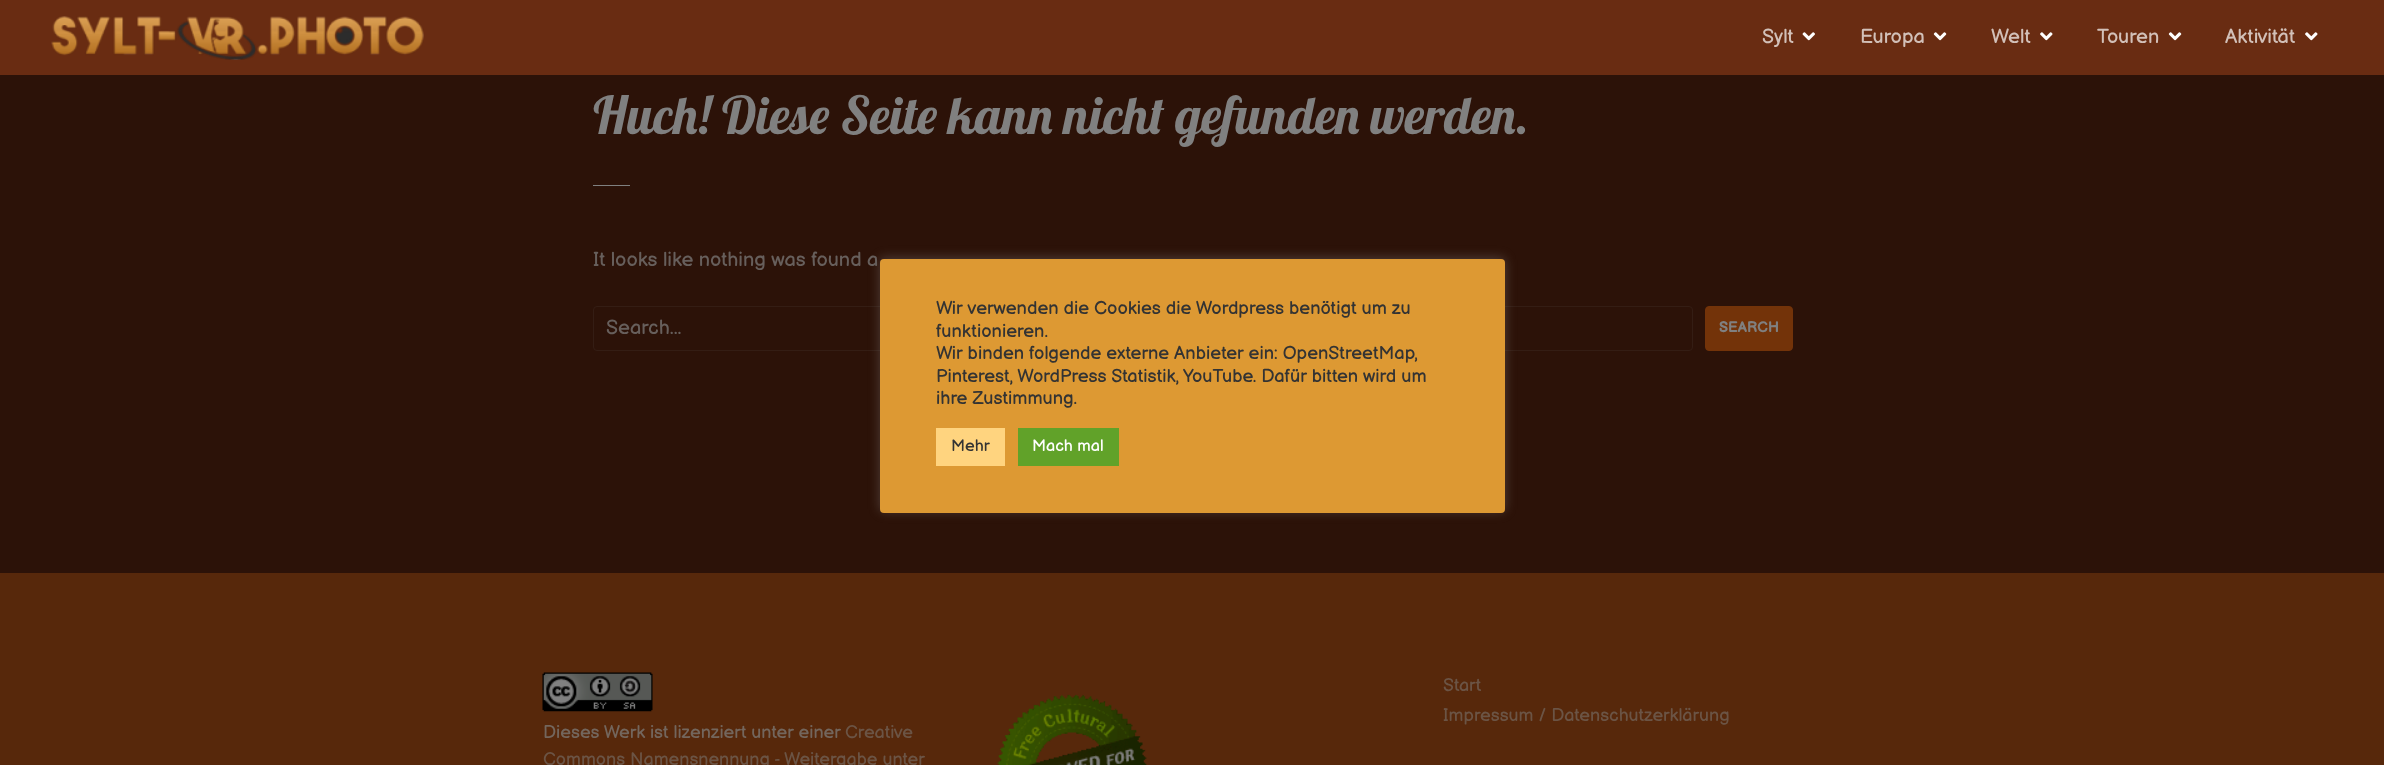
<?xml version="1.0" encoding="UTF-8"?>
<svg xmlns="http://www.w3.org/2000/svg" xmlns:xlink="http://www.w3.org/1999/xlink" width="2384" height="765">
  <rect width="100%" height="100%" fill="#2c1208" />
  <rect width="2384" height="75" fill="#692c12" />
  <image x="51" y="16" width="373" height="44" xlink:href="image1.png" />
  <image x="1802" y="32" width="13" height="9" xlink:href="image2.png" />
  <image x="1933" y="32" width="14" height="9" xlink:href="image3.png" />
  <image x="2040" y="32" width="13" height="9" xlink:href="image4.png" />
  <image x="2168" y="32" width="14" height="9" xlink:href="image3.png" />
  <image x="2305" y="32" width="13" height="9" xlink:href="image4.png" />
  <rect x="593" y="185" width="37" height="1" fill="#808080" />
  <rect x="593.5" y="306.5" width="1099" height="44" rx="3.5" fill="none" stroke="#341d14" />
  <rect x="1705.5" y="306.5" width="87" height="44" rx="3.5" fill="#733309" stroke="#733309" />
  <rect y="573" width="2384" height="192" fill="#57280b" />
  <image x="542" y="672" width="111" height="40" xlink:href="image5.png" />
  <image x="997" y="694" width="150" height="71" xlink:href="image6.png" />
  <rect x="880" y="258" width="625" height="253" rx="4" fill="#acabab" fill-opacity="0.3" filter="blur(6px)" />
  <rect x="880" y="259" width="625" height="254" rx="4" fill="#dd9933" />
  <rect x="936" y="428" width="69" height="38" fill="#ffd47f" />
  <rect x="1018" y="428" width="101" height="38" fill="#61a229" />
  <text x="1762" y="43" style="font-family: Balsamiq Sans; font-size: 20px; fill: #d2c0b8">Sylt</text>
  <text x="1860" y="43" style="font-family: Balsamiq Sans; font-size: 20px; fill: #d2c0b8">Europa</text>
  <text x="1991" y="43" style="font-family: Balsamiq Sans; font-size: 20px; fill: #d2c0b8">Welt</text>
  <text x="2097" y="43" style="font-family: Balsamiq Sans; font-size: 20px; fill: #d2c0b8">Touren</text>
  <text x="2225" y="43" style="font-family: Balsamiq Sans; font-size: 20px; fill: #d2c0b8">Aktivität</text>
  <text x="593" y="134" style="font-family: Lobster; font-size: 52px; fill: #808080">Huch! Diese Seite kann nicht gefunden werden.</text>
  <text x="593" y="266" style="font-family: Balsamiq Sans; font-size: 20px; fill: #675f5c">It looks like nothing was found a</text>
  <text x="606" y="334" style="font-family: Balsamiq Sans; font-size: 20px; fill: #675f5c">Search...</text>
  <text x="1719" y="332" style="font-family: Balsamiq Sans; font-size: 15px; font-weight: bold; fill: #808080">SEARCH</text>
  <text x="543" y="738" style="font-family: Balsamiq Sans; font-size: 18px; fill: #73665d">Dieses Werk ist lizenziert unter einer</text>
  <text x="845" y="738" style="font-family: Balsamiq Sans; font-size: 18px; fill: #6b5445">Creative</text>
  <text x="543" y="765" style="font-family: Balsamiq Sans; font-size: 18px; fill: #6b5445">Commons Namensnennung - Weitergabe unter</text>
  <text x="1443" y="691" style="font-family: Balsamiq Sans; font-size: 18px; fill: #6b5445">Start</text>
  <text x="1443" y="721" style="font-family: Balsamiq Sans; font-size: 18px; fill: #6b5445">Impressum / Datenschutzerklärung</text>
  <text x="936" y="314" style="font-family: Balsamiq Sans; font-size: 18.3px; fill: #333333">Wir verwenden die Cookies die Wordpress benötigt um zu</text>
  <text x="936" y="337" style="font-family: Balsamiq Sans; font-size: 18.3px; fill: #333333">funktionieren.</text>
  <text x="936" y="359" style="font-family: Balsamiq Sans; font-size: 18.3px; fill: #333333">Wir binden folgende externe Anbieter ein: OpenStreetMap,</text>
  <text x="936" y="382" style="font-family: Balsamiq Sans; font-size: 18.3px; fill: #333333">Pinterest, WordPress Statistik, YouTube. Dafür bitten wird um</text>
  <text x="936" y="404" style="font-family: Balsamiq Sans; font-size: 18.3px; fill: #333333">ihre Zustimmung.</text>
  <text x="951" y="451" style="font-family: Balsamiq Sans; font-size: 16.25px; fill: #333333">Mehr</text>
  <text x="1032" y="451" style="font-family: Balsamiq Sans; font-size: 16.25px; fill: #ffffff">Mach mal</text>
</svg>
